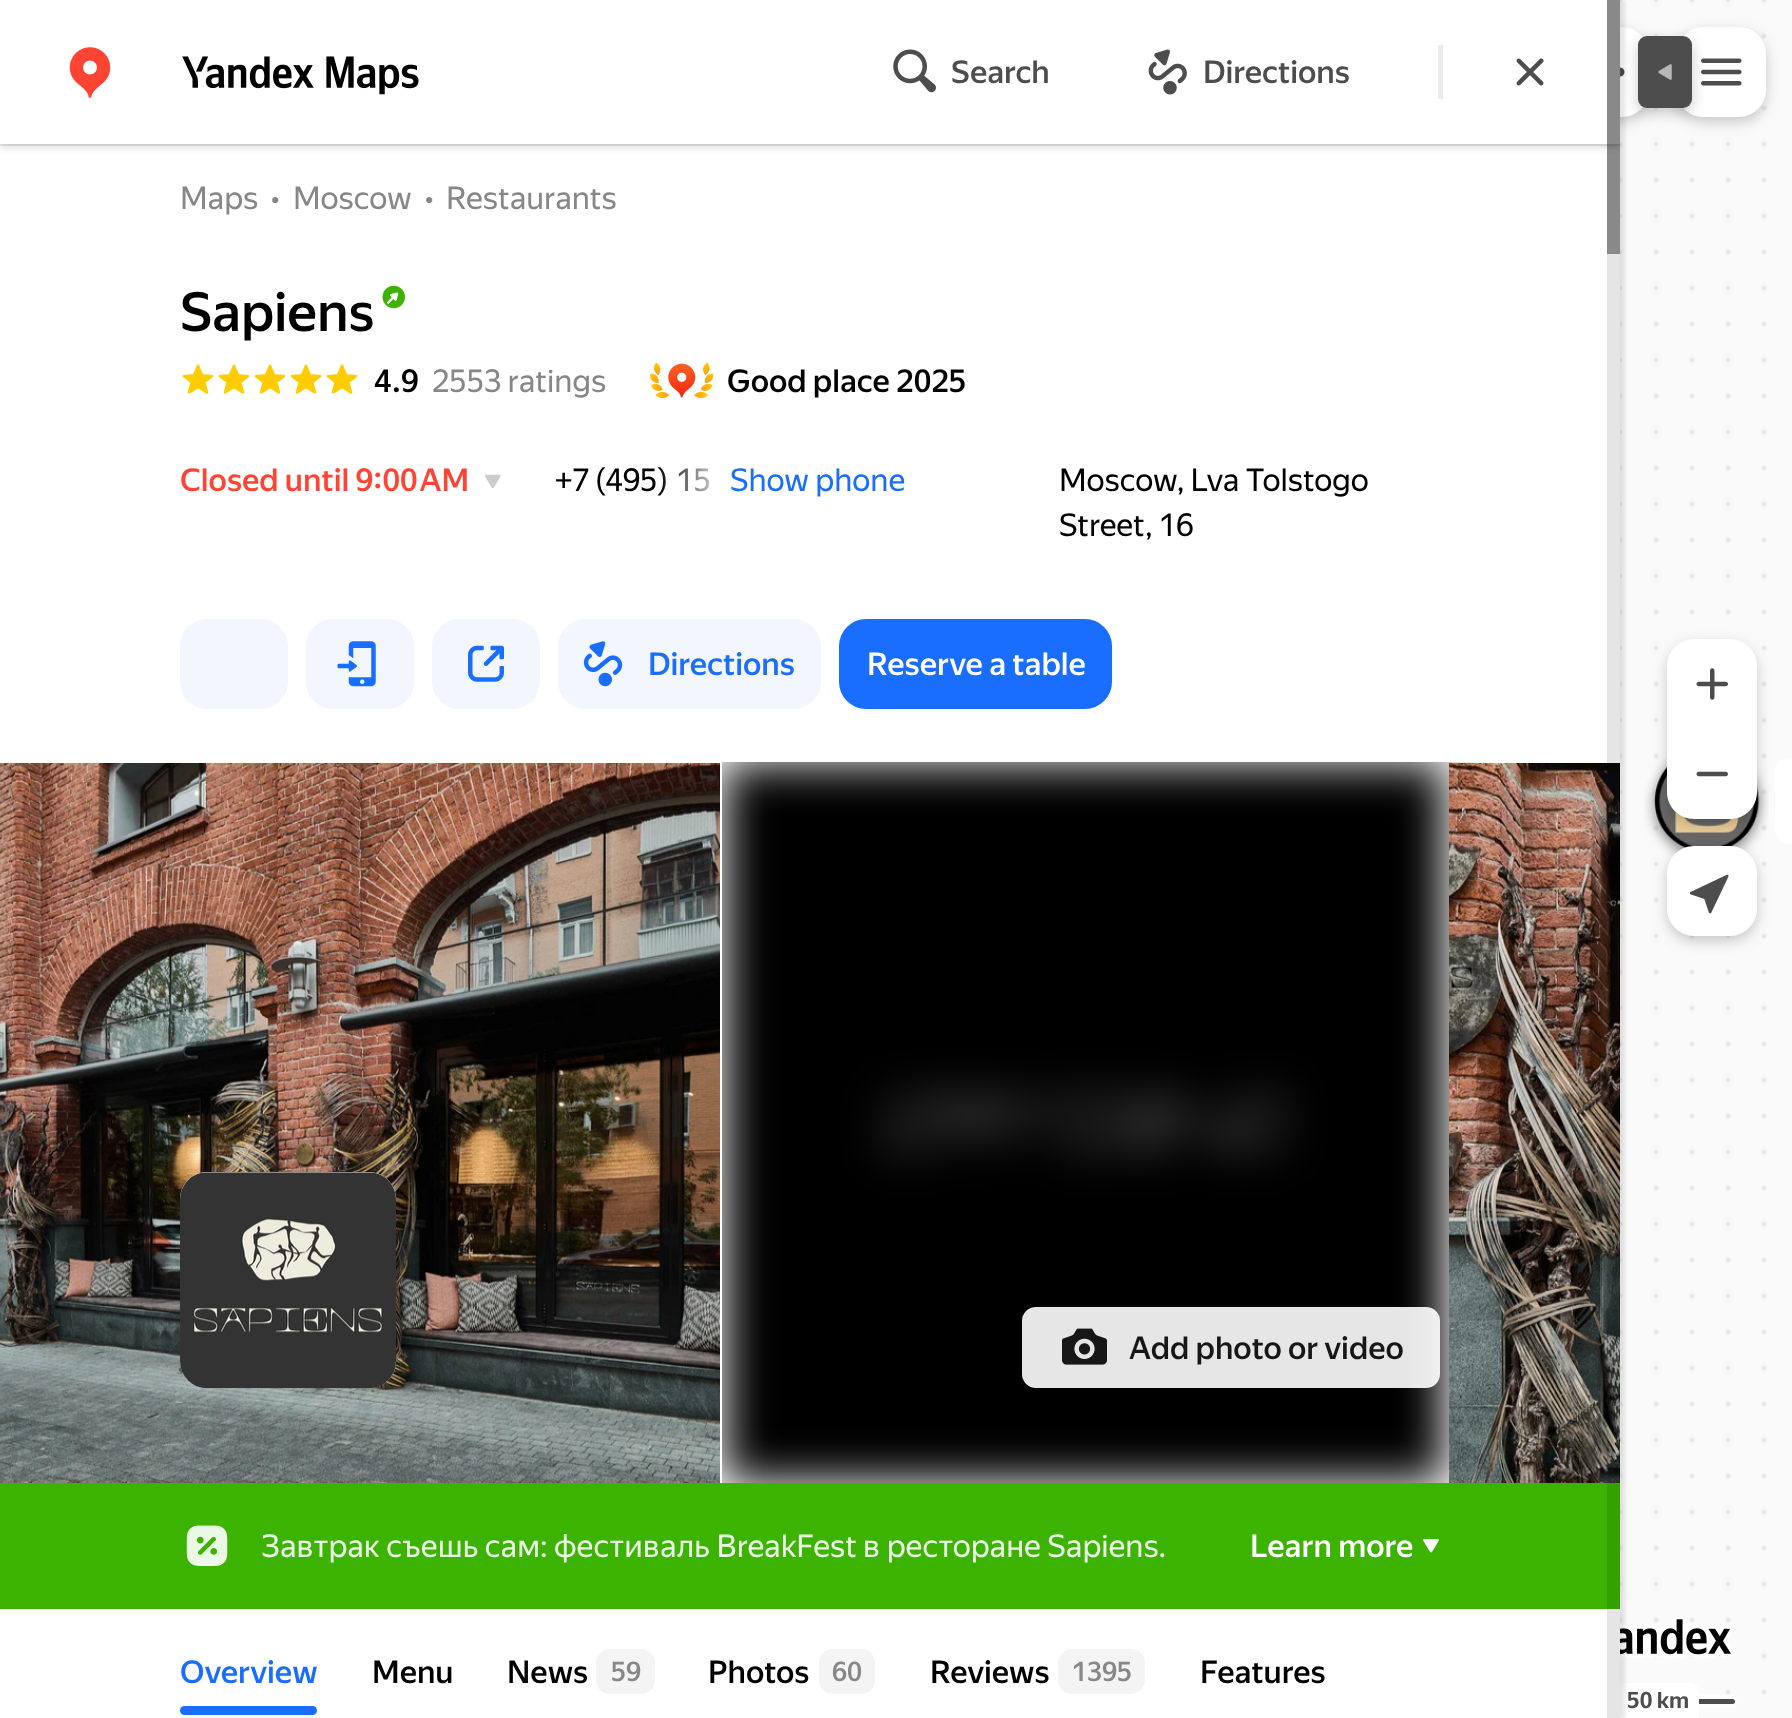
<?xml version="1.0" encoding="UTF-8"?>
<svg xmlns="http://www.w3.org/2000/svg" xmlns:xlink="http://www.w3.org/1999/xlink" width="1792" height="1718">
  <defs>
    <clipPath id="clip1"><rect x="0" y="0" width="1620" height="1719" /></clipPath>
    <linearGradient id="g1" gradientUnits="userSpaceOnUse" x1="657" y1="479" x2="729" y2="479"><stop offset="0" stop-color="#ffffff" stop-opacity="0" /><stop offset="1" stop-color="#ffffff" /></linearGradient>
  </defs>
  <rect width="100%" height="100%" fill="#ffffff" />
  <image x="1620" y="0" width="172" height="1718" xlink:href="image1.png" />
  <rect x="1559" y="32" width="90" height="90" rx="27" fill="#000000" fill-opacity="0.2" filter="blur(7px)" />
  <rect x="1559" y="27" width="90" height="90" rx="27" fill="#ffffff" />
  <image x="1620" y="67" width="5" height="10" xlink:href="image22.png" />
  <image x="1620" y="1617" width="111" height="42" xlink:href="image27.png" />
  <rect x="1577" y="1694" width="162" height="14" rx="7" fill="#ffffff" fill-opacity="0.6" />
  <rect x="1582" y="1699" width="153" height="5" rx="2.5" fill="#4d4d4d" />
  <path d="M 1627 1683 h 63 c 5 0 9 4 9 9 v 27 h -81 v -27 c 0 -5 4 -9 9 -9 z" fill="#ffffff" />
  <rect x="5" width="1620" height="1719" fill="#000000" fill-opacity="0.1" filter="blur(2px)" />
  <rect x="2" y="146" width="1618" height="1572" fill="#ffffff" />
  <rect y="144" width="1620" height="2" fill="#ebebeb" />
  <g clip-path="url(#clip1)">
    <rect y="137" width="1620" height="9" fill="#000000" fill-opacity="0.2" filter="blur(4.5px)" />
  </g>
  <rect x="1676" y="32" width="90" height="90" rx="27" fill="#000000" fill-opacity="0.2" filter="blur(7px)" />
  <rect x="1676" y="27" width="90" height="90" rx="27" fill="#ffffff" />
  <image x="1701" y="58" width="41" height="28" xlink:href="image23.png" />
  <rect x="1638" y="41" width="54" height="72" rx="9" fill="#000000" fill-opacity="0.2" filter="blur(7px)" />
  <rect width="1620" height="144" fill="#ffffff" />
  <image x="69" y="47" width="42" height="51" xlink:href="image2.png" />
  <image x="182" y="56" width="237" height="39" xlink:href="image3.png" />
  <image x="893" y="49" width="43" height="44" xlink:href="image4.png" />
  <image x="1148" y="49" width="39" height="46" xlink:href="image5.png" />
  <rect x="1438" y="45" width="5" height="54" fill="#ebebeb" />
  <image x="1516" y="58" width="28" height="28" xlink:href="image6.png" />
  <image x="382" y="285" width="23" height="24" xlink:href="image7.png" />
  <image x="182" y="364" width="32" height="30" xlink:href="image8.png" />
  <image x="218" y="364" width="32" height="30" xlink:href="image8.png" />
  <image x="254" y="364" width="32" height="30" xlink:href="image8.png" />
  <image x="290" y="364" width="32" height="30" xlink:href="image8.png" />
  <image x="326" y="364" width="32" height="30" xlink:href="image8.png" />
  <image x="650" y="362" width="63" height="36" xlink:href="image9.png" />
  <image x="485" y="474" width="16" height="15" xlink:href="image10.png" />
  <rect x="180" y="619" width="108" height="90" rx="27" fill="#f3f6fc" />
  <rect x="306" y="619" width="108" height="90" rx="27" fill="#f3f6fc" />
  <image x="337" y="641" width="39" height="46" xlink:href="image11.png" />
  <rect x="432" y="619" width="108" height="90" rx="27" fill="#f3f6fc" />
  <image x="468" y="645" width="36" height="37" xlink:href="image12.png" />
  <rect x="558" y="619" width="263" height="90" rx="27" fill="#f3f6fc" />
  <image x="583" y="641" width="40" height="46" xlink:href="image13.png" />
  <rect x="839" y="619" width="273" height="90" rx="27" fill="#196dff" />
  <image x="0" y="763" width="720" height="720" xlink:href="image14.png" />
  <image x="722" y="762" width="725" height="721" xlink:href="image15.png" />
  <image x="1447" y="762" width="173" height="721" xlink:href="image16.png" />
  <rect x="180" y="1172" width="216" height="216" rx="27" fill="#ffffff" />
  <image x="180" y="1172" width="216" height="217" xlink:href="image17.png" />
  <rect x="1022" y="1307" width="418" height="81" rx="14" fill="#ffffff" fill-opacity="0.9" />
  <image x="1062" y="1328" width="45" height="37" xlink:href="image18.png" />
  <rect y="1483" width="1620" height="126" fill="#3bb300" />
  <image x="186" y="1525" width="42" height="41" xlink:href="image19.png" />
  <image x="1423" y="1539" width="16" height="14" xlink:href="image20.png" />
  <rect x="596" y="1649" width="59" height="45" rx="14" fill="#f4f4f4" />
  <rect x="819" y="1649" width="56" height="45" rx="14" fill="#f4f4f4" />
  <rect x="1058" y="1649" width="87" height="45" rx="14" fill="#f4f4f4" />
  <rect x="180" y="1706" width="137" height="9" rx="4.5" fill="#196dff" />
  <rect x="1607" width="13" height="1718" fill="#000000" fill-opacity="0.1" />
  <rect x="1607" width="13" height="254" fill="#000000" fill-opacity="0.4" />
  <rect x="1638" y="36" width="54" height="72" rx="9" fill="#4d4d4d" />
  <image x="1658" y="64" width="14" height="16" xlink:href="image21.png" />
  <image x="1644" y="758" width="125" height="99" xlink:href="image28.png" />
  <path d="M 1789 758 h 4 v 86 h -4 c -7.5 0 -14 -6.5 -14 -14 v -58 c 0 -7.5 6.5 -14 14 -14 z" fill="#ffffff" />
  <rect x="1667" y="644" width="90" height="180" rx="27" fill="#000000" fill-opacity="0.2" filter="blur(7px)" />
  <path d="M 1694 639 h 36 c 15 0 27 12 27 27 v 63 h -90 v -63 c 0 -15 12 -27 27 -27 z" fill="#ffffff" />
  <image x="1696" y="668" width="32" height="32" xlink:href="image24.png" />
  <path d="M 1667 729 h 90 v 63 c 0 15 -12 27 -27 27 h -36 c -15 0 -27 -12 -27 -27 z" fill="#ffffff" />
  <image x="1696" y="771" width="32" height="6" xlink:href="image25.png" />
  <rect x="1667" y="851" width="90" height="90" rx="27" fill="#000000" fill-opacity="0.2" filter="blur(7px)" />
  <rect x="1667" y="846" width="90" height="90" rx="27" fill="#ffffff" />
  <image x="1689" y="874" width="40" height="40" xlink:href="image26.png" />
  <text x="951" y="83" style="font-family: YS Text; font-size: 31.5px; font-weight: 500; fill: #4d4d4d">Search</text>
  <text x="1203" y="83" style="font-family: YS Text; font-size: 31.5px; font-weight: 500; fill: #4d4d4d">Directions</text>
  <text x="180" y="209" style="font-family: YS Text; font-size: 31.5px; fill: #878787">Maps</text>
  <text x="271" y="209" style="font-family: YS Text; font-size: 31.5px; fill: #878787">•</text>
  <text x="293" y="209" style="font-family: YS Text; font-size: 31.5px; fill: #878787">Moscow</text>
  <text x="425" y="209" style="font-family: YS Text; font-size: 31.5px; fill: #878787">•</text>
  <text x="446" y="209" style="font-family: YS Text; font-size: 31.5px; fill: #878787">Restaurants</text>
  <text x="180" y="331" style="font-family: YS Text; font-size: 54px; font-weight: 500; fill: #000000">Sapiens</text>
  <text x="374" y="392" style="font-family: YS Text; font-size: 31.5px; font-weight: 500; fill: #000000">4.9</text>
  <text x="432" y="392" style="font-family: YS Text; font-size: 31.5px; fill: #878787">2553 ratings</text>
  <text x="727" y="392" style="font-family: YS Text; font-size: 31.5px; font-weight: 500; fill: #000000">Good place 2025</text>
  <text x="180" y="491" style="font-family: YS Text; font-size: 31.5px; font-weight: 500; fill: #ff4433">Closed until 9:00 AM</text>
  <text x="555" y="491" style="font-family: YS Text; font-size: 31.5px; fill: #000000">+7 (495) 15</text>
  <rect x="659" y="467" width="50" height="29" fill="url(#g1)" />
  <text x="730" y="491" style="font-family: YS Text; font-size: 31.5px; fill: #196dff">Show phone</text>
  <text x="1059" y="491" style="font-family: YS Text; font-size: 31.5px; fill: #000000">Moscow, Lva Tolstogo</text>
  <text x="1059" y="536" style="font-family: YS Text; font-size: 31.5px; fill: #000000">Street, 16</text>
  <text x="648" y="675" style="font-family: YS Text; font-size: 31.5px; font-weight: 500; fill: #196dff">Directions</text>
  <text x="867" y="675" style="font-family: YS Text; font-size: 31.5px; font-weight: 500; fill: #ffffff">Reserve a table</text>
  <text x="1129" y="1359" style="font-family: YS Text; font-size: 31.5px; font-weight: 500; fill: #171717">Add photo or video</text>
  <text x="261" y="1557" style="font-family: YS Text; font-size: 31.5px; fill: #ebf7e6">Завтрак съешь сам: фестиваль BreakFest в ресторане Sapiens.</text>
  <text x="1250" y="1557" style="font-family: YS Text; font-size: 31.5px; font-weight: 500; fill: #ffffff">Learn more</text>
  <text x="180" y="1683" style="font-family: YS Text; font-size: 31.5px; font-weight: 500; fill: #196dff">Overview</text>
  <text x="372" y="1683" style="font-family: YS Text; font-size: 31.5px; font-weight: 500; fill: #000000">Menu</text>
  <text x="507" y="1683" style="font-family: YS Text; font-size: 31.5px; font-weight: 500; fill: #000000">News</text>
  <text x="611" y="1681" style="font-family: YS Text; font-size: 27px; font-weight: 500; fill: #878787">59</text>
  <text x="708" y="1683" style="font-family: YS Text; font-size: 31.5px; font-weight: 500; fill: #000000">Photos</text>
  <text x="832" y="1681" style="font-family: YS Text; font-size: 27px; font-weight: 500; fill: #878787">60</text>
  <text x="930" y="1683" style="font-family: YS Text; font-size: 31.5px; font-weight: 500; fill: #000000">Reviews</text>
  <text x="1072" y="1681" style="font-family: YS Text; font-size: 27px; font-weight: 500; fill: #878787">1395</text>
  <text x="1200" y="1683" style="font-family: YS Text; font-size: 31.5px; font-weight: 500; fill: #000000">Features</text>
  <text x="1627" y="1708" style="font-family: YS Text; font-size: 22.5px; font-weight: bold; fill: #4d4d4d">50 km</text>
</svg>
